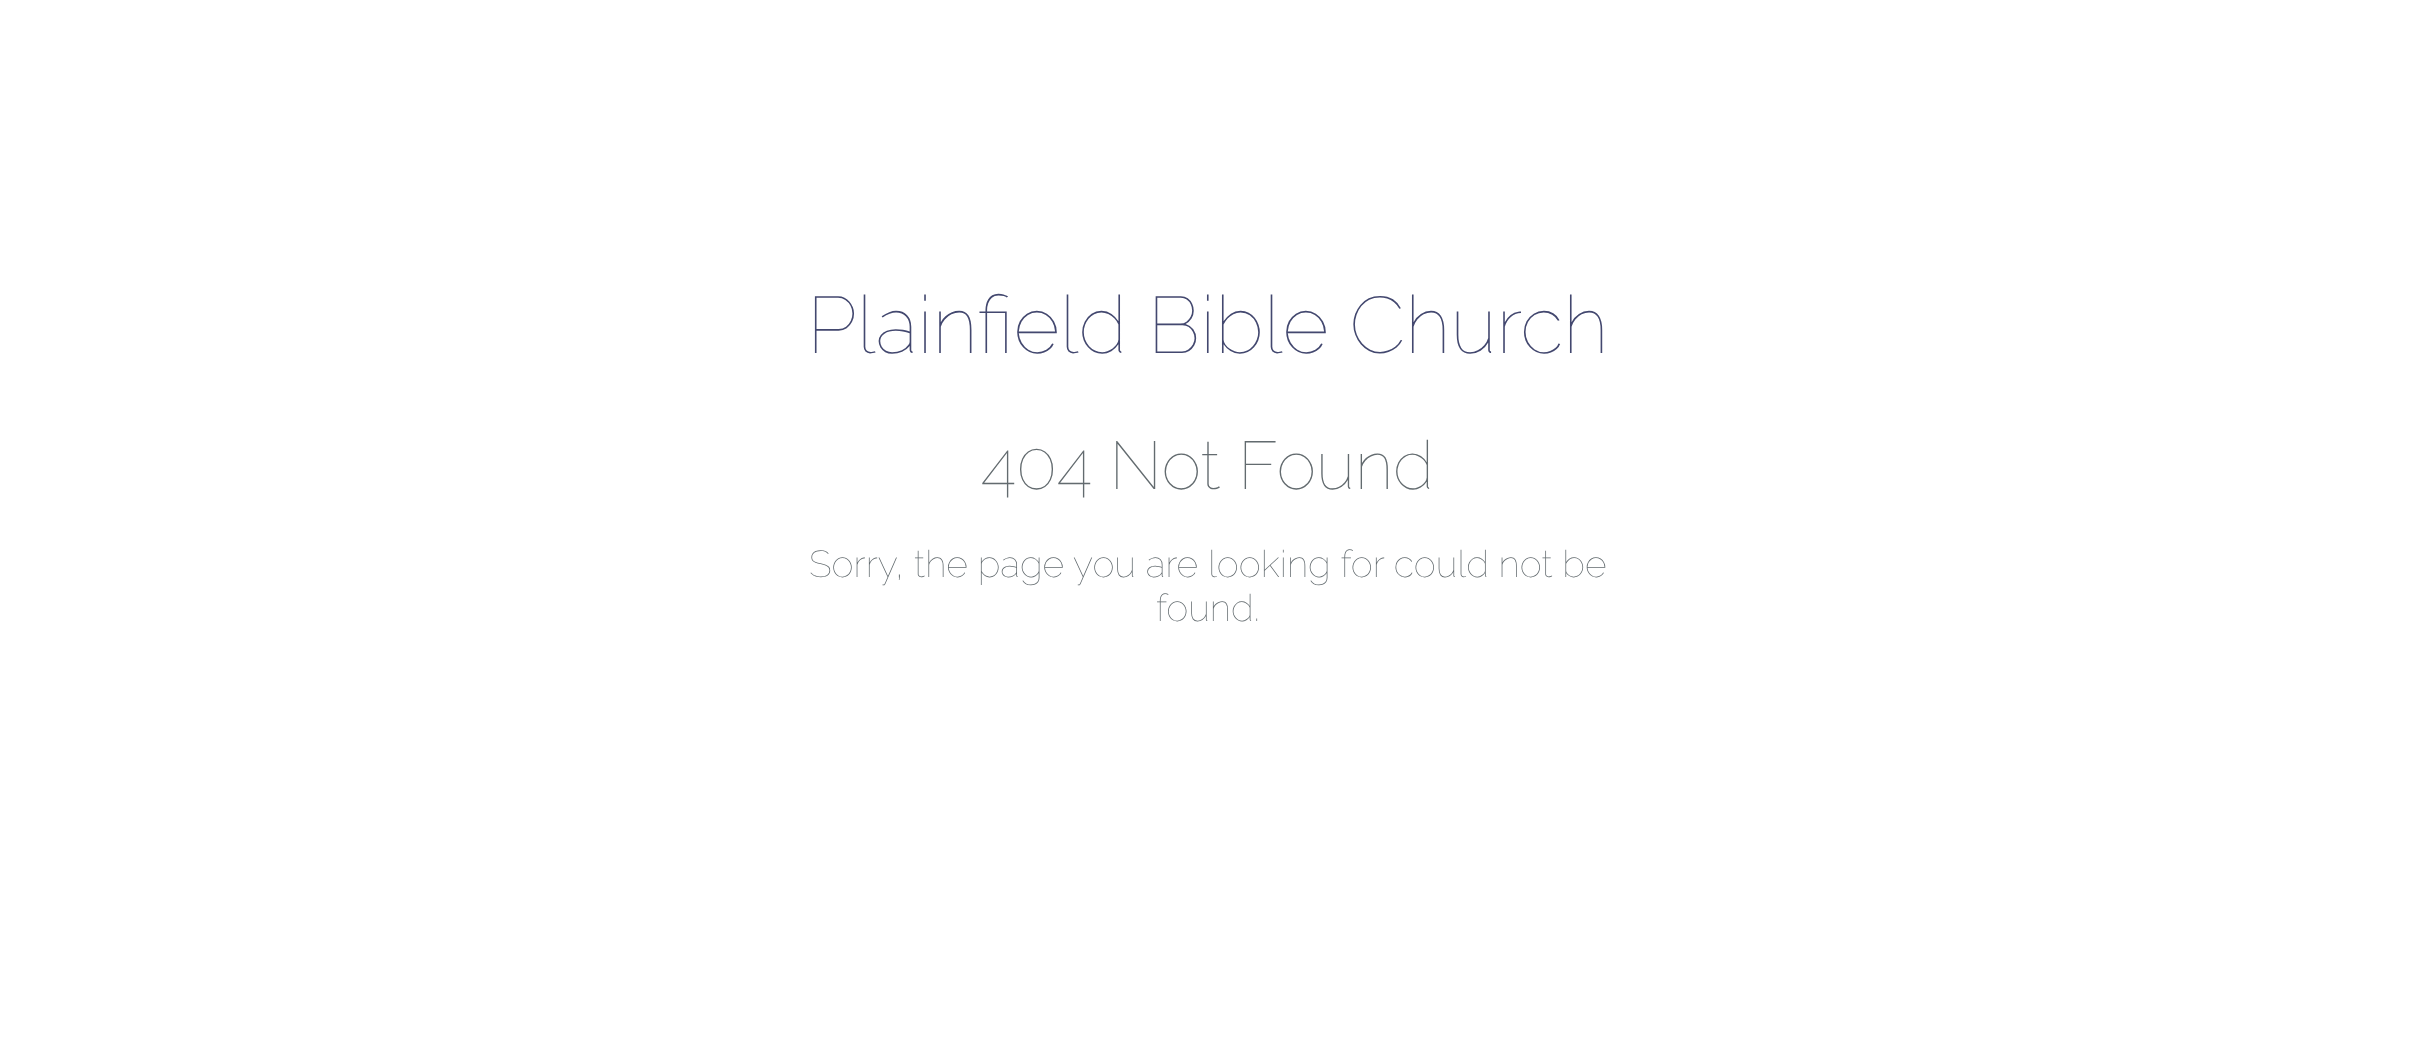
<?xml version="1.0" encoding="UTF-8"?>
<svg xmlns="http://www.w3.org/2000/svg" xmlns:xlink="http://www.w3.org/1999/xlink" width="2415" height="1048">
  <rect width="100%" height="100%" fill="#ffffff" />
  <text x="807" y="353" style="font-family: Raleway; font-size: 80px; font-weight: 100; fill: #43486f">Plainfield Bible Church</text>
  <text x="981" y="489" style="font-family: Raleway; font-size: 67.5px; font-weight: 100; fill: #636b6f">404 Not Found</text>
  <text x="809" y="577" style="font-family: Raleway; font-size: 37.5px; font-weight: 100; fill: #636b6f">Sorry, the page you are looking for could not be</text>
  <text x="1156" y="621" style="font-family: Raleway; font-size: 37.5px; font-weight: 100; fill: #636b6f">found.</text>
</svg>
